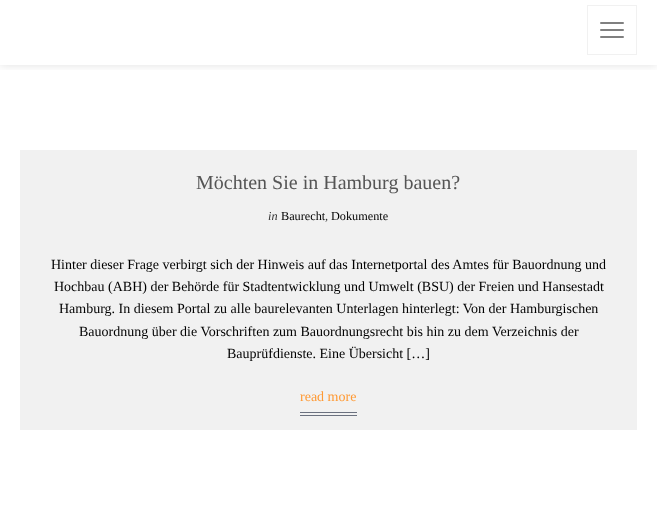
<?xml version="1.0" encoding="UTF-8"?>
<svg xmlns="http://www.w3.org/2000/svg" xmlns:xlink="http://www.w3.org/1999/xlink" width="657" height="519">
  <defs>
    <clipPath id="clip1"><rect x="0" y="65" width="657" height="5" /></clipPath>
  </defs>
  <rect width="100%" height="100%" fill="#ffffff" />
  <g clip-path="url(#clip1)">
    <rect width="657" height="65" fill="#000000" fill-opacity="0.12" filter="blur(5px)" />
  </g>
  <rect x="587.5" y="5.5" width="49" height="49" fill="none" stroke="#f1f1f1" />
  <rect x="600" y="22" width="24" height="2" rx="1" fill="#808080" />
  <rect x="600" y="29" width="24" height="2" rx="1" fill="#808080" />
  <rect x="600" y="36" width="24" height="2" rx="1" fill="#808080" />
  <rect x="20" y="150" width="617" height="280" fill="#f1f1f1" />
  <rect x="300" y="412" width="57" height="1" fill="#6b717f" />
  <rect x="300" y="415" width="57" height="1" fill="#6b717f" />
  <text x="196" y="189" style="font-family: Liberation Serif; font-size: 20px; fill: #555555">Möchten Sie in Hamburg bauen?</text>
  <text x="268" y="220" style="font-family: Liberation Serif; font-size: 12.25px; font-style: italic; fill: #333333">in</text>
  <text x="281" y="220" style="font-family: Liberation Serif; font-size: 12.25px; fill: #000000">Baurecht</text>
  <text x="325" y="220" style="font-family: Liberation Serif; font-size: 12.25px; font-style: italic; fill: #333333">,</text>
  <text x="331" y="220" style="font-family: Liberation Serif; font-size: 12.25px; fill: #000000">Dokumente</text>
  <text x="51" y="269" style="font-family: Liberation Serif; font-size: 14px; fill: #000000">Hinter dieser Frage verbirgt sich der Hinweis auf das Internetportal des Amtes für Bauordnung und</text>
  <text x="54" y="291" style="font-family: Liberation Serif; font-size: 14px; fill: #000000">Hochbau (ABH) der Behörde für Stadtentwicklung und Umwelt (BSU) der Freien und Hansestadt</text>
  <text x="59" y="313" style="font-family: Liberation Serif; font-size: 14px; fill: #000000">Hamburg. In diesem Portal zu alle baurelevanten Unterlagen hinterlegt: Von der Hamburgischen</text>
  <text x="79" y="336" style="font-family: Liberation Serif; font-size: 14px; fill: #000000">Bauordnung über die Vorschriften zum Bauordnungsrecht bis hin zu dem Verzeichnis der</text>
  <text x="227" y="358" style="font-family: Liberation Serif; font-size: 14px; fill: #000000">Bauprüfdienste. Eine Übersicht […]</text>
  <text x="300" y="401" style="font-family: Liberation Serif; font-size: 14px; fill: #ff9933">read more</text>
</svg>
